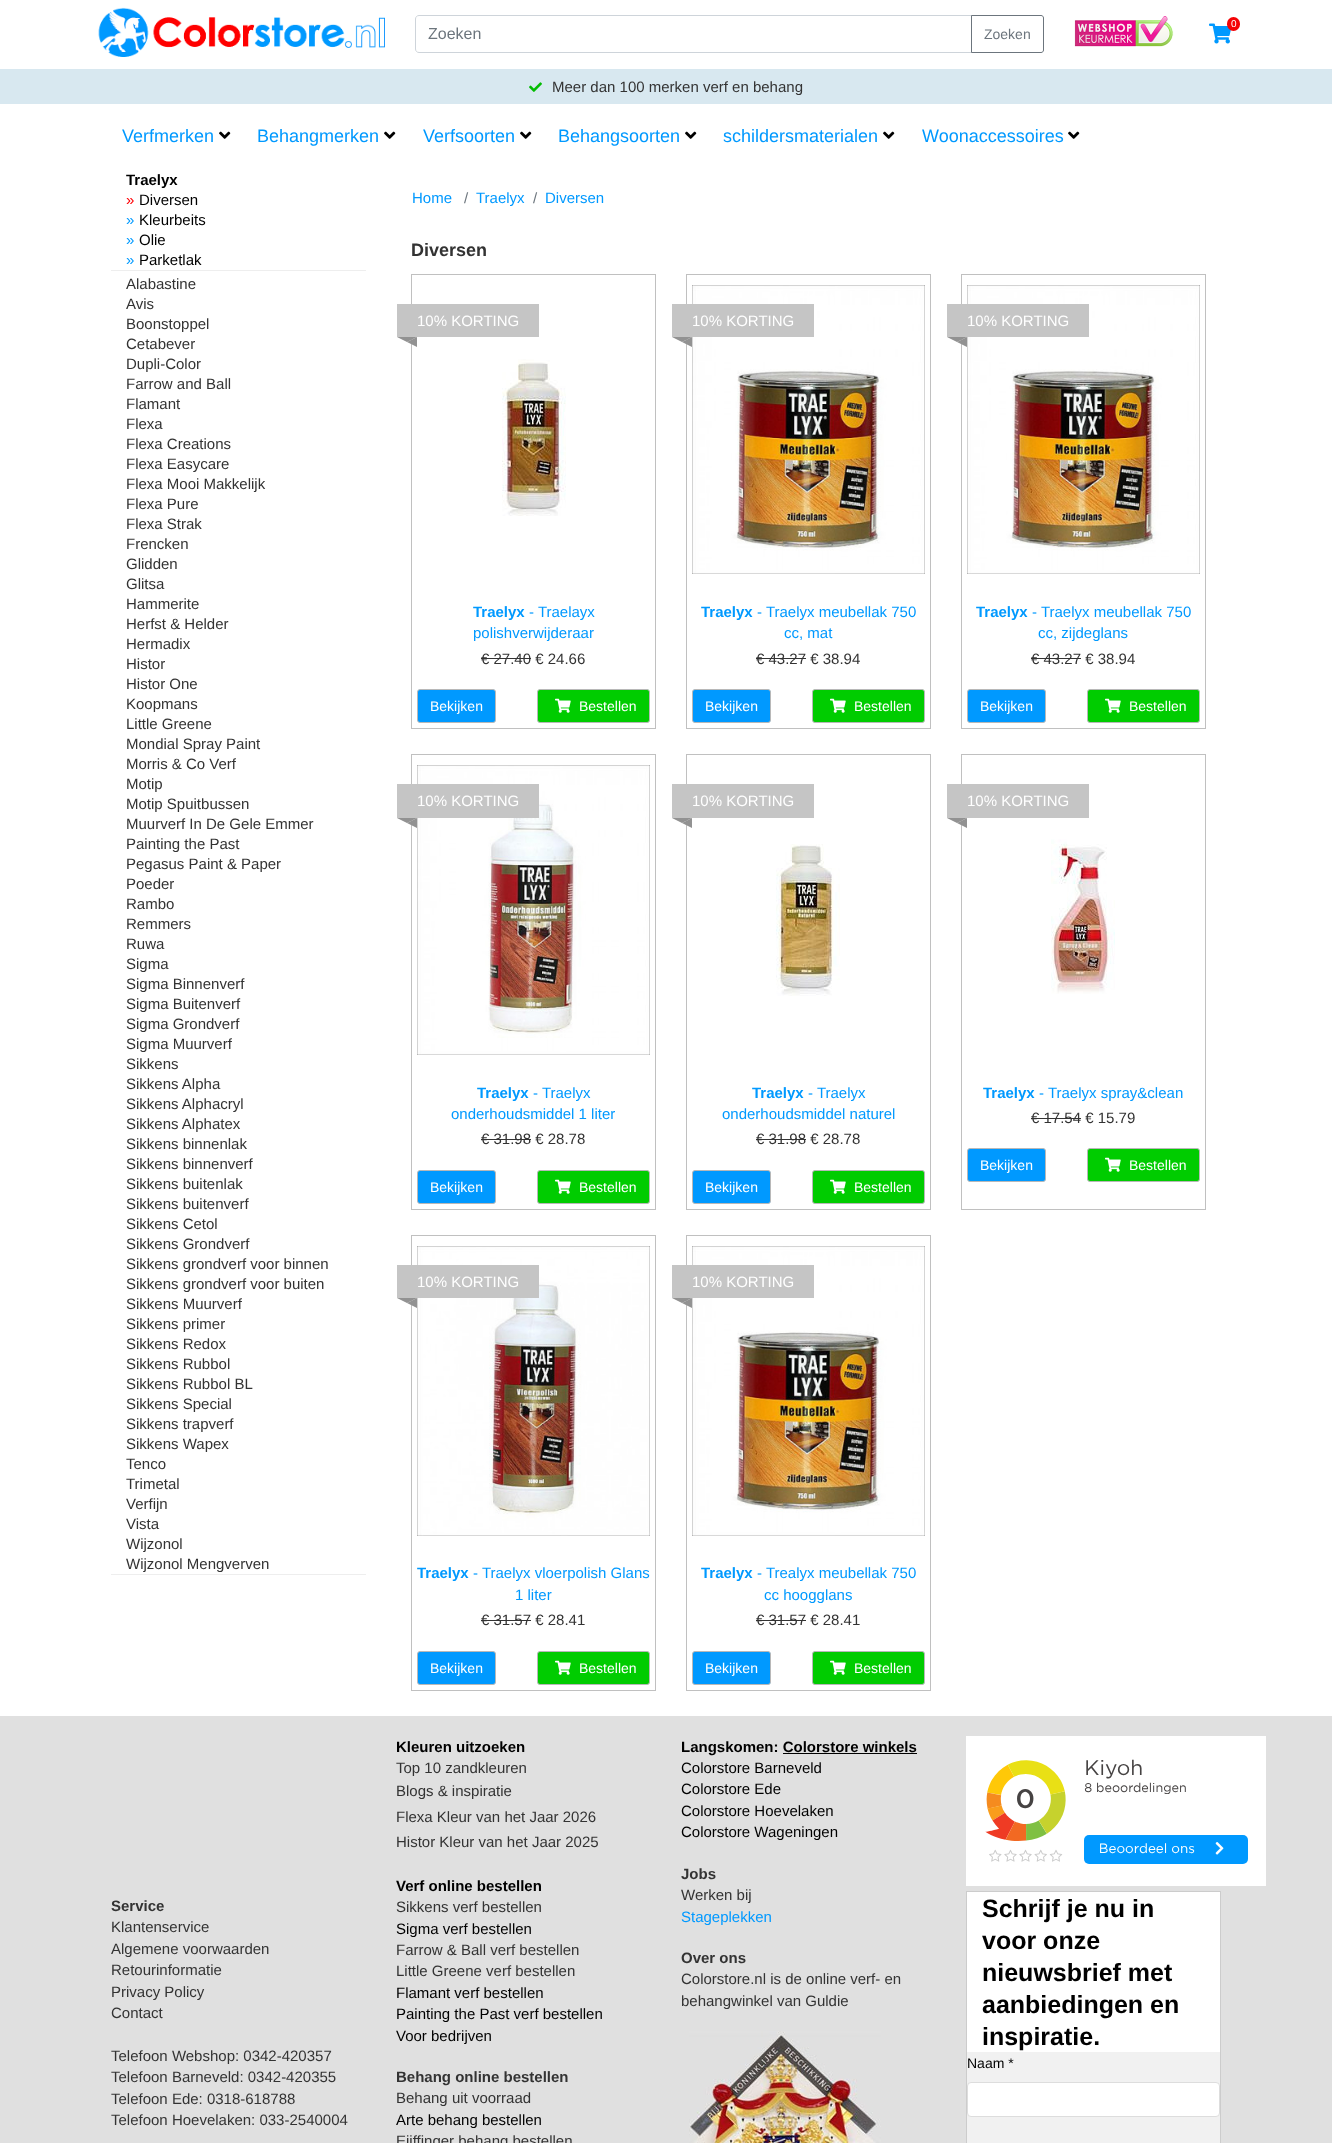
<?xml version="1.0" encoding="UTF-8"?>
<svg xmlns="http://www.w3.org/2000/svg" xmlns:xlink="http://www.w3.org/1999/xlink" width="1332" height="2143">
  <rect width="100%" height="100%" fill="#ffffff" />
  <image x="98" y="7" width="287" height="50" xlink:href="image1.png" />
  <image x="1074" y="16" width="100" height="31" xlink:href="image2.png" />
  <image x="1209" y="23" width="22" height="21" xlink:href="image3.png" />
  <rect x="1227" y="17" width="13" height="14" rx="6.5" fill="#f40305" />
  <path d="M 419 15.5 h 552.5 v 37 h -552.5 c -2 0 -3.5 -1.5 -3.5 -3.5 v -30 c 0 -2 1.5 -3.5 3.5 -3.5 z" fill="none" stroke="#ced4da" />
  <path d="M 971.5 15.5 h 69.5 c 1.5 0 2.5 1 2.5 2.5 v 32 c 0 1.5 -1 2.5 -2.5 2.5 h -69.5 z" fill="none" stroke="#6c757d" />
  <rect y="69" width="1332" height="35" fill="#d8e8f0" />
  <image x="529" y="82" width="13" height="10" xlink:href="image4.png" />
  <image x="219" y="131" width="12" height="8" xlink:href="image5.png" />
  <image x="384" y="131" width="12" height="8" xlink:href="image5.png" />
  <image x="520" y="131" width="12" height="8" xlink:href="image5.png" />
  <image x="685" y="131" width="12" height="8" xlink:href="image5.png" />
  <image x="883" y="131" width="12" height="8" xlink:href="image5.png" />
  <image x="1068" y="131" width="12" height="8" xlink:href="image5.png" />
  <rect x="111" y="270" width="255" height="1" fill="#eeeeee" />
  <rect x="111" y="1574" width="255" height="1" fill="#eeeeee" />
  <rect x="411.5" y="274.5" width="244" height="454" fill="none" stroke="#c0c0c0" />
  <rect x="397" y="304" width="142" height="33" fill="#c5c5c5" />
  <path d="M 397 337 h 20 l -10 5 z" fill="#929292" />
  <path d="M 417 337 v 10 l -10 -5 z" fill="#929292" />
  <image x="502" y="359" width="64" height="157" xlink:href="image6.png" />
  <rect x="481" y="658" width="50" height="1" fill="#333333" />
  <rect x="417.5" y="689.5" width="78" height="33" rx="2.5" fill="#0099ff" stroke="#b8b8b8" />
  <rect x="537.5" y="689.5" width="112" height="33" rx="2.5" fill="#00cc00" stroke="#b8b8b8" />
  <image x="555" y="698" width="16" height="15" xlink:href="image7.png" />
  <rect x="686.5" y="274.5" width="244" height="454" fill="none" stroke="#c0c0c0" />
  <image x="692" y="285" width="233" height="289" xlink:href="image8.png" />
  <rect x="672" y="304" width="142" height="33" fill="#c5c5c5" />
  <path d="M 672 337 h 20 l -10 5 z" fill="#929292" />
  <path d="M 692 337 v 10 l -10 -5 z" fill="#929292" />
  <rect x="756" y="658" width="50" height="1" fill="#333333" />
  <rect x="692.5" y="689.5" width="78" height="33" rx="2.5" fill="#0099ff" stroke="#b8b8b8" />
  <rect x="812.5" y="689.5" width="112" height="33" rx="2.5" fill="#00cc00" stroke="#b8b8b8" />
  <image x="830" y="698" width="16" height="15" xlink:href="image7.png" />
  <rect x="961.5" y="274.5" width="244" height="454" fill="none" stroke="#c0c0c0" />
  <image x="967" y="285" width="233" height="289" xlink:href="image8.png" />
  <rect x="947" y="304" width="142" height="33" fill="#c5c5c5" />
  <path d="M 947 337 h 20 l -10 5 z" fill="#929292" />
  <path d="M 967 337 v 10 l -10 -5 z" fill="#929292" />
  <rect x="1031" y="658" width="50" height="1" fill="#333333" />
  <rect x="967.5" y="689.5" width="78" height="33" rx="2.5" fill="#0099ff" stroke="#b8b8b8" />
  <rect x="1087.5" y="689.5" width="112" height="33" rx="2.5" fill="#00cc00" stroke="#b8b8b8" />
  <image x="1105" y="698" width="16" height="15" xlink:href="image7.png" />
  <rect x="411.5" y="754.5" width="244" height="455" fill="none" stroke="#c0c0c0" />
  <image x="417" y="765" width="233" height="290" xlink:href="image9.png" />
  <rect x="397" y="784" width="142" height="34" fill="#c5c5c5" />
  <path d="M 397 818 h 20 l -10 5 z" fill="#929292" />
  <path d="M 417 818 v 10 l -10 -5 z" fill="#929292" />
  <rect x="481" y="1139" width="50" height="1" fill="#333333" />
  <rect x="417.5" y="1170.5" width="78" height="33" rx="2.5" fill="#0099ff" stroke="#b8b8b8" />
  <rect x="537.5" y="1170.5" width="112" height="33" rx="2.5" fill="#00cc00" stroke="#b8b8b8" />
  <image x="555" y="1179" width="16" height="15" xlink:href="image7.png" />
  <rect x="686.5" y="754.5" width="244" height="455" fill="none" stroke="#c0c0c0" />
  <rect x="672" y="784" width="142" height="34" fill="#c5c5c5" />
  <path d="M 672 818 h 20 l -10 5 z" fill="#929292" />
  <path d="M 692 818 v 10 l -10 -5 z" fill="#929292" />
  <image x="776" y="844" width="64" height="152" xlink:href="image10.png" />
  <rect x="756" y="1139" width="50" height="1" fill="#333333" />
  <rect x="692.5" y="1170.5" width="78" height="33" rx="2.5" fill="#0099ff" stroke="#b8b8b8" />
  <rect x="812.5" y="1170.5" width="112" height="33" rx="2.5" fill="#00cc00" stroke="#b8b8b8" />
  <image x="830" y="1179" width="16" height="15" xlink:href="image7.png" />
  <rect x="961.5" y="754.5" width="244" height="455" fill="none" stroke="#c0c0c0" />
  <rect x="947" y="784" width="142" height="34" fill="#c5c5c5" />
  <path d="M 947 818 h 20 l -10 5 z" fill="#929292" />
  <path d="M 967 818 v 10 l -10 -5 z" fill="#929292" />
  <image x="1051" y="839" width="64" height="155" xlink:href="image11.png" />
  <rect x="1031" y="1118" width="50" height="1" fill="#333333" />
  <rect x="967.5" y="1148.5" width="78" height="33" rx="2.5" fill="#0099ff" stroke="#b8b8b8" />
  <rect x="1087.5" y="1148.5" width="112" height="33" rx="2.5" fill="#00cc00" stroke="#b8b8b8" />
  <image x="1105" y="1157" width="16" height="15" xlink:href="image7.png" />
  <rect x="411.5" y="1235.5" width="244" height="455" fill="none" stroke="#c0c0c0" />
  <image x="417" y="1246" width="233" height="290" xlink:href="image12.png" />
  <rect x="397" y="1265" width="142" height="33" fill="#c5c5c5" />
  <path d="M 397 1298 h 20 l -10 5 z" fill="#929292" />
  <path d="M 417 1298 v 10 l -10 -5 z" fill="#929292" />
  <rect x="481" y="1620" width="50" height="1" fill="#333333" />
  <rect x="417.5" y="1651.5" width="78" height="33" rx="2.5" fill="#0099ff" stroke="#b8b8b8" />
  <rect x="537.5" y="1651.5" width="112" height="33" rx="2.5" fill="#00cc00" stroke="#b8b8b8" />
  <image x="555" y="1660" width="16" height="15" xlink:href="image7.png" />
  <rect x="686.5" y="1235.5" width="244" height="455" fill="none" stroke="#c0c0c0" />
  <image x="692" y="1246" width="233" height="290" xlink:href="image13.png" />
  <rect x="672" y="1265" width="142" height="33" fill="#c5c5c5" />
  <path d="M 672 1298 h 20 l -10 5 z" fill="#929292" />
  <path d="M 692 1298 v 10 l -10 -5 z" fill="#929292" />
  <rect x="756" y="1620" width="50" height="1" fill="#333333" />
  <rect x="692.5" y="1651.5" width="78" height="33" rx="2.5" fill="#0099ff" stroke="#b8b8b8" />
  <rect x="812.5" y="1651.5" width="112" height="33" rx="2.5" fill="#00cc00" stroke="#b8b8b8" />
  <image x="830" y="1660" width="16" height="15" xlink:href="image7.png" />
  <rect y="1716" width="1332" height="427" fill="#e0e0e0" />
  <rect x="783" y="1753" width="134" height="1" fill="#000000" />
  <image x="689" y="2031" width="192" height="112" xlink:href="image14.png" />
  <image x="966" y="1736" width="300" height="150" xlink:href="image15.png" />
  <rect x="967" y="1892" width="253" height="160" fill="#ffffff" />
  <rect x="966.5" y="1891.5" width="254" height="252" fill="none" stroke="#cccccc" />
  <rect x="967" y="2052" width="253" height="91" fill="#f1f1f1" />
  <rect x="967.5" y="2082.5" width="252" height="34" rx="3.5" fill="#ffffff" stroke="#dddddd" />
  <text x="1231" y="27" style="font-family: Liberation Sans; font-size: 10px; fill: #ffffff">0</text>
  <text x="428" y="39" style="font-family: Liberation Sans; font-size: 16px; fill: #6c757d">Zoeken</text>
  <text x="984" y="39" style="font-family: Liberation Sans; font-size: 14px; fill: #6c757d">Zoeken</text>
  <text x="552" y="92" style="font-family: Liberation Sans; font-size: 15px; fill: #333333">Meer dan 100 merken verf en behang</text>
  <text x="122" y="142" style="font-family: Liberation Sans; font-size: 18px; fill: #0099ff">Verfmerken</text>
  <text x="257" y="142" style="font-family: Liberation Sans; font-size: 18px; fill: #0099ff">Behangmerken</text>
  <text x="423" y="142" style="font-family: Liberation Sans; font-size: 18px; fill: #0099ff">Verfsoorten</text>
  <text x="558" y="142" style="font-family: Liberation Sans; font-size: 18px; fill: #0099ff">Behangsoorten</text>
  <text x="723" y="142" style="font-family: Liberation Sans; font-size: 18px; fill: #0099ff">schildersmaterialen</text>
  <text x="922" y="142" style="font-family: Liberation Sans; font-size: 18px; fill: #0099ff">Woonaccessoires</text>
  <text x="126" y="185" style="font-family: Liberation Sans; font-size: 15px; font-weight: bold; fill: #000000">Traelyx</text>
  <text x="126" y="205" style="font-family: Liberation Sans; font-size: 15px; fill: #ff0408">»</text>
  <text x="139" y="205" style="font-family: Liberation Sans; font-size: 15px; fill: #000000">Diversen</text>
  <text x="126" y="225" style="font-family: Liberation Sans; font-size: 15px; fill: #079cff">»</text>
  <text x="139" y="225" style="font-family: Liberation Sans; font-size: 15px; fill: #000000">Kleurbeits</text>
  <text x="126" y="245" style="font-family: Liberation Sans; font-size: 15px; fill: #079cff">»</text>
  <text x="139" y="245" style="font-family: Liberation Sans; font-size: 15px; fill: #000000">Olie</text>
  <text x="126" y="265" style="font-family: Liberation Sans; font-size: 15px; fill: #079cff">»</text>
  <text x="139" y="265" style="font-family: Liberation Sans; font-size: 15px; fill: #000000">Parketlak</text>
  <text x="126" y="289" style="font-family: Liberation Sans; font-size: 15px; fill: #333333">Alabastine</text>
  <text x="126" y="309" style="font-family: Liberation Sans; font-size: 15px; fill: #333333">Avis</text>
  <text x="126" y="329" style="font-family: Liberation Sans; font-size: 15px; fill: #333333">Boonstoppel</text>
  <text x="126" y="349" style="font-family: Liberation Sans; font-size: 15px; fill: #333333">Cetabever</text>
  <text x="126" y="369" style="font-family: Liberation Sans; font-size: 15px; fill: #333333">Dupli-Color</text>
  <text x="126" y="389" style="font-family: Liberation Sans; font-size: 15px; fill: #333333">Farrow and Ball</text>
  <text x="126" y="409" style="font-family: Liberation Sans; font-size: 15px; fill: #333333">Flamant</text>
  <text x="126" y="429" style="font-family: Liberation Sans; font-size: 15px; fill: #333333">Flexa</text>
  <text x="126" y="449" style="font-family: Liberation Sans; font-size: 15px; fill: #333333">Flexa Creations</text>
  <text x="126" y="469" style="font-family: Liberation Sans; font-size: 15px; fill: #333333">Flexa Easycare</text>
  <text x="126" y="489" style="font-family: Liberation Sans; font-size: 15px; fill: #333333">Flexa Mooi Makkelijk</text>
  <text x="126" y="509" style="font-family: Liberation Sans; font-size: 15px; fill: #333333">Flexa Pure</text>
  <text x="126" y="529" style="font-family: Liberation Sans; font-size: 15px; fill: #333333">Flexa Strak</text>
  <text x="126" y="549" style="font-family: Liberation Sans; font-size: 15px; fill: #333333">Frencken</text>
  <text x="126" y="569" style="font-family: Liberation Sans; font-size: 15px; fill: #333333">Glidden</text>
  <text x="126" y="589" style="font-family: Liberation Sans; font-size: 15px; fill: #333333">Glitsa</text>
  <text x="126" y="609" style="font-family: Liberation Sans; font-size: 15px; fill: #333333">Hammerite</text>
  <text x="126" y="629" style="font-family: Liberation Sans; font-size: 15px; fill: #333333">Herfst &amp; Helder</text>
  <text x="126" y="649" style="font-family: Liberation Sans; font-size: 15px; fill: #333333">Hermadix</text>
  <text x="126" y="669" style="font-family: Liberation Sans; font-size: 15px; fill: #333333">Histor</text>
  <text x="126" y="689" style="font-family: Liberation Sans; font-size: 15px; fill: #333333">Histor One</text>
  <text x="126" y="709" style="font-family: Liberation Sans; font-size: 15px; fill: #333333">Koopmans</text>
  <text x="126" y="729" style="font-family: Liberation Sans; font-size: 15px; fill: #333333">Little Greene</text>
  <text x="126" y="749" style="font-family: Liberation Sans; font-size: 15px; fill: #333333">Mondial Spray Paint</text>
  <text x="126" y="769" style="font-family: Liberation Sans; font-size: 15px; fill: #333333">Morris &amp; Co Verf</text>
  <text x="126" y="789" style="font-family: Liberation Sans; font-size: 15px; fill: #333333">Motip</text>
  <text x="126" y="809" style="font-family: Liberation Sans; font-size: 15px; fill: #333333">Motip Spuitbussen</text>
  <text x="126" y="829" style="font-family: Liberation Sans; font-size: 15px; fill: #333333">Muurverf In De Gele Emmer</text>
  <text x="126" y="849" style="font-family: Liberation Sans; font-size: 15px; fill: #333333">Painting the Past</text>
  <text x="126" y="869" style="font-family: Liberation Sans; font-size: 15px; fill: #333333">Pegasus Paint &amp; Paper</text>
  <text x="126" y="889" style="font-family: Liberation Sans; font-size: 15px; fill: #333333">Poeder</text>
  <text x="126" y="909" style="font-family: Liberation Sans; font-size: 15px; fill: #333333">Rambo</text>
  <text x="126" y="929" style="font-family: Liberation Sans; font-size: 15px; fill: #333333">Remmers</text>
  <text x="126" y="949" style="font-family: Liberation Sans; font-size: 15px; fill: #333333">Ruwa</text>
  <text x="126" y="969" style="font-family: Liberation Sans; font-size: 15px; fill: #333333">Sigma</text>
  <text x="126" y="989" style="font-family: Liberation Sans; font-size: 15px; fill: #333333">Sigma Binnenverf</text>
  <text x="126" y="1009" style="font-family: Liberation Sans; font-size: 15px; fill: #333333">Sigma Buitenverf</text>
  <text x="126" y="1029" style="font-family: Liberation Sans; font-size: 15px; fill: #333333">Sigma Grondverf</text>
  <text x="126" y="1049" style="font-family: Liberation Sans; font-size: 15px; fill: #333333">Sigma Muurverf</text>
  <text x="126" y="1069" style="font-family: Liberation Sans; font-size: 15px; fill: #333333">Sikkens</text>
  <text x="126" y="1089" style="font-family: Liberation Sans; font-size: 15px; fill: #333333">Sikkens Alpha</text>
  <text x="126" y="1109" style="font-family: Liberation Sans; font-size: 15px; fill: #333333">Sikkens Alphacryl</text>
  <text x="126" y="1129" style="font-family: Liberation Sans; font-size: 15px; fill: #333333">Sikkens Alphatex</text>
  <text x="126" y="1149" style="font-family: Liberation Sans; font-size: 15px; fill: #333333">Sikkens binnenlak</text>
  <text x="126" y="1169" style="font-family: Liberation Sans; font-size: 15px; fill: #333333">Sikkens binnenverf</text>
  <text x="126" y="1189" style="font-family: Liberation Sans; font-size: 15px; fill: #333333">Sikkens buitenlak</text>
  <text x="126" y="1209" style="font-family: Liberation Sans; font-size: 15px; fill: #333333">Sikkens buitenverf</text>
  <text x="126" y="1229" style="font-family: Liberation Sans; font-size: 15px; fill: #333333">Sikkens Cetol</text>
  <text x="126" y="1249" style="font-family: Liberation Sans; font-size: 15px; fill: #333333">Sikkens Grondverf</text>
  <text x="126" y="1269" style="font-family: Liberation Sans; font-size: 15px; fill: #333333">Sikkens grondverf voor binnen</text>
  <text x="126" y="1289" style="font-family: Liberation Sans; font-size: 15px; fill: #333333">Sikkens grondverf voor buiten</text>
  <text x="126" y="1309" style="font-family: Liberation Sans; font-size: 15px; fill: #333333">Sikkens Muurverf</text>
  <text x="126" y="1329" style="font-family: Liberation Sans; font-size: 15px; fill: #333333">Sikkens primer</text>
  <text x="126" y="1349" style="font-family: Liberation Sans; font-size: 15px; fill: #333333">Sikkens Redox</text>
  <text x="126" y="1369" style="font-family: Liberation Sans; font-size: 15px; fill: #333333">Sikkens Rubbol</text>
  <text x="126" y="1389" style="font-family: Liberation Sans; font-size: 15px; fill: #333333">Sikkens Rubbol BL</text>
  <text x="126" y="1409" style="font-family: Liberation Sans; font-size: 15px; fill: #333333">Sikkens Special</text>
  <text x="126" y="1429" style="font-family: Liberation Sans; font-size: 15px; fill: #333333">Sikkens trapverf</text>
  <text x="126" y="1449" style="font-family: Liberation Sans; font-size: 15px; fill: #333333">Sikkens Wapex</text>
  <text x="126" y="1469" style="font-family: Liberation Sans; font-size: 15px; fill: #333333">Tenco</text>
  <text x="126" y="1489" style="font-family: Liberation Sans; font-size: 15px; fill: #333333">Trimetal</text>
  <text x="126" y="1509" style="font-family: Liberation Sans; font-size: 15px; fill: #333333">Verfijn</text>
  <text x="126" y="1529" style="font-family: Liberation Sans; font-size: 15px; fill: #333333">Vista</text>
  <text x="126" y="1549" style="font-family: Liberation Sans; font-size: 15px; fill: #333333">Wijzonol</text>
  <text x="126" y="1569" style="font-family: Liberation Sans; font-size: 15px; fill: #333333">Wijzonol Mengverven</text>
  <text x="412" y="203" style="font-family: Liberation Sans; font-size: 15px; fill: #0099ff">Home</text>
  <text x="464" y="203" style="font-family: Liberation Sans; font-size: 15px; fill: #6c757d">/</text>
  <text x="476" y="203" style="font-family: Liberation Sans; font-size: 15px; fill: #0099ff">Traelyx</text>
  <text x="533" y="203" style="font-family: Liberation Sans; font-size: 15px; fill: #6c757d">/</text>
  <text x="545" y="203" style="font-family: Liberation Sans; font-size: 15px; fill: #0099ff">Diversen</text>
  <text x="411" y="256" style="font-family: Liberation Sans; font-size: 18px; font-weight: bold; fill: #333333">Diversen</text>
  <text x="417" y="326" style="font-family: Liberation Sans; font-size: 15px; fill: #ffffff">10% KORTING</text>
  <text x="473" y="617" style="font-family: Liberation Sans; font-size: 15px; font-weight: bold; fill: #0099ff">Traelyx</text>
  <text x="529" y="617" style="font-family: Liberation Sans; font-size: 15px; fill: #0099ff">- Traelayx</text>
  <text x="473" y="638" style="font-family: Liberation Sans; font-size: 15px; fill: #0099ff">polishverwijderaar</text>
  <text x="481" y="664" style="font-family: Liberation Sans; font-size: 15px; fill: #333333">€ 27.40 € 24.66</text>
  <text x="430" y="711" style="font-family: Liberation Sans; font-size: 14px; fill: #ffffff">Bekijken</text>
  <text x="579" y="711" style="font-family: Liberation Sans; font-size: 14px; fill: #ffffff">Bestellen</text>
  <text x="692" y="326" style="font-family: Liberation Sans; font-size: 15px; fill: #ffffff">10% KORTING</text>
  <text x="701" y="617" style="font-family: Liberation Sans; font-size: 15px; font-weight: bold; fill: #0099ff">Traelyx</text>
  <text x="757" y="617" style="font-family: Liberation Sans; font-size: 15px; fill: #0099ff">- Traelyx meubellak 750</text>
  <text x="784" y="638" style="font-family: Liberation Sans; font-size: 15px; fill: #0099ff">cc, mat</text>
  <text x="756" y="664" style="font-family: Liberation Sans; font-size: 15px; fill: #333333">€ 43.27 € 38.94</text>
  <text x="705" y="711" style="font-family: Liberation Sans; font-size: 14px; fill: #ffffff">Bekijken</text>
  <text x="854" y="711" style="font-family: Liberation Sans; font-size: 14px; fill: #ffffff">Bestellen</text>
  <text x="967" y="326" style="font-family: Liberation Sans; font-size: 15px; fill: #ffffff">10% KORTING</text>
  <text x="976" y="617" style="font-family: Liberation Sans; font-size: 15px; font-weight: bold; fill: #0099ff">Traelyx</text>
  <text x="1032" y="617" style="font-family: Liberation Sans; font-size: 15px; fill: #0099ff">- Traelyx meubellak 750</text>
  <text x="1038" y="638" style="font-family: Liberation Sans; font-size: 15px; fill: #0099ff">cc, zijdeglans</text>
  <text x="1031" y="664" style="font-family: Liberation Sans; font-size: 15px; fill: #333333">€ 43.27 € 38.94</text>
  <text x="980" y="711" style="font-family: Liberation Sans; font-size: 14px; fill: #ffffff">Bekijken</text>
  <text x="1129" y="711" style="font-family: Liberation Sans; font-size: 14px; fill: #ffffff">Bestellen</text>
  <text x="417" y="806" style="font-family: Liberation Sans; font-size: 15px; fill: #ffffff">10% KORTING</text>
  <text x="477" y="1098" style="font-family: Liberation Sans; font-size: 15px; font-weight: bold; fill: #0099ff">Traelyx</text>
  <text x="533" y="1098" style="font-family: Liberation Sans; font-size: 15px; fill: #0099ff">- Traelyx</text>
  <text x="451" y="1119" style="font-family: Liberation Sans; font-size: 15px; fill: #0099ff">onderhoudsmiddel 1 liter</text>
  <text x="481" y="1144" style="font-family: Liberation Sans; font-size: 15px; fill: #333333">€ 31.98 € 28.78</text>
  <text x="430" y="1192" style="font-family: Liberation Sans; font-size: 14px; fill: #ffffff">Bekijken</text>
  <text x="579" y="1192" style="font-family: Liberation Sans; font-size: 14px; fill: #ffffff">Bestellen</text>
  <text x="692" y="806" style="font-family: Liberation Sans; font-size: 15px; fill: #ffffff">10% KORTING</text>
  <text x="752" y="1098" style="font-family: Liberation Sans; font-size: 15px; font-weight: bold; fill: #0099ff">Traelyx</text>
  <text x="808" y="1098" style="font-family: Liberation Sans; font-size: 15px; fill: #0099ff">- Traelyx</text>
  <text x="722" y="1119" style="font-family: Liberation Sans; font-size: 15px; fill: #0099ff">onderhoudsmiddel naturel</text>
  <text x="756" y="1144" style="font-family: Liberation Sans; font-size: 15px; fill: #333333">€ 31.98 € 28.78</text>
  <text x="705" y="1192" style="font-family: Liberation Sans; font-size: 14px; fill: #ffffff">Bekijken</text>
  <text x="854" y="1192" style="font-family: Liberation Sans; font-size: 14px; fill: #ffffff">Bestellen</text>
  <text x="967" y="806" style="font-family: Liberation Sans; font-size: 15px; fill: #ffffff">10% KORTING</text>
  <text x="983" y="1098" style="font-family: Liberation Sans; font-size: 15px; font-weight: bold; fill: #0099ff">Traelyx</text>
  <text x="1039" y="1098" style="font-family: Liberation Sans; font-size: 15px; fill: #0099ff">- Traelyx spray&amp;clean</text>
  <text x="1031" y="1123" style="font-family: Liberation Sans; font-size: 15px; fill: #333333">€ 17.54 € 15.79</text>
  <text x="980" y="1170" style="font-family: Liberation Sans; font-size: 14px; fill: #ffffff">Bekijken</text>
  <text x="1129" y="1170" style="font-family: Liberation Sans; font-size: 14px; fill: #ffffff">Bestellen</text>
  <text x="417" y="1287" style="font-family: Liberation Sans; font-size: 15px; fill: #ffffff">10% KORTING</text>
  <text x="417" y="1578" style="font-family: Liberation Sans; font-size: 15px; font-weight: bold; fill: #0099ff">Traelyx</text>
  <text x="473" y="1578" style="font-family: Liberation Sans; font-size: 15px; fill: #0099ff">- Traelyx vloerpolish Glans</text>
  <text x="515" y="1600" style="font-family: Liberation Sans; font-size: 15px; fill: #0099ff">1 liter</text>
  <text x="481" y="1625" style="font-family: Liberation Sans; font-size: 15px; fill: #333333">€ 31.57 € 28.41</text>
  <text x="430" y="1673" style="font-family: Liberation Sans; font-size: 14px; fill: #ffffff">Bekijken</text>
  <text x="579" y="1673" style="font-family: Liberation Sans; font-size: 14px; fill: #ffffff">Bestellen</text>
  <text x="692" y="1287" style="font-family: Liberation Sans; font-size: 15px; fill: #ffffff">10% KORTING</text>
  <text x="701" y="1578" style="font-family: Liberation Sans; font-size: 15px; font-weight: bold; fill: #0099ff">Traelyx</text>
  <text x="757" y="1578" style="font-family: Liberation Sans; font-size: 15px; fill: #0099ff">- Trealyx meubellak 750</text>
  <text x="764" y="1600" style="font-family: Liberation Sans; font-size: 15px; fill: #0099ff">cc hoogglans</text>
  <text x="756" y="1625" style="font-family: Liberation Sans; font-size: 15px; fill: #333333">€ 31.57 € 28.41</text>
  <text x="705" y="1673" style="font-family: Liberation Sans; font-size: 14px; fill: #ffffff">Bekijken</text>
  <text x="854" y="1673" style="font-family: Liberation Sans; font-size: 14px; fill: #ffffff">Bestellen</text>
  <text x="111" y="1911" style="font-family: Liberation Sans; font-size: 15px; font-weight: bold; fill: #333333">Service</text>
  <text x="111" y="1932" style="font-family: Liberation Sans; font-size: 15px; fill: #333333">Klantenservice</text>
  <text x="111" y="1954" style="font-family: Liberation Sans; font-size: 15px; fill: #333333">Algemene voorwaarden</text>
  <text x="111" y="1975" style="font-family: Liberation Sans; font-size: 15px; fill: #333333">Retourinformatie</text>
  <text x="111" y="1997" style="font-family: Liberation Sans; font-size: 15px; fill: #333333">Privacy Policy</text>
  <text x="111" y="2018" style="font-family: Liberation Sans; font-size: 15px; fill: #333333">Contact</text>
  <text x="111" y="2061" style="font-family: Liberation Sans; font-size: 15px; fill: #333333">Telefoon Webshop: 0342-420357</text>
  <text x="111" y="2082" style="font-family: Liberation Sans; font-size: 15px; fill: #333333">Telefoon Barneveld: 0342-420355</text>
  <text x="111" y="2104" style="font-family: Liberation Sans; font-size: 15px; fill: #333333">Telefoon Ede: 0318-618788</text>
  <text x="111" y="2125" style="font-family: Liberation Sans; font-size: 15px; fill: #333333">Telefoon Hoevelaken: 033-2540004</text>
  <text x="396" y="1752" style="font-family: Liberation Sans; font-size: 15px; font-weight: bold; fill: #000000">Kleuren uitzoeken</text>
  <text x="396" y="1773" style="font-family: Liberation Sans; font-size: 15px; fill: #333333">Top 10 zandkleuren</text>
  <text x="396" y="1796" style="font-family: Liberation Sans; font-size: 15px; fill: #333333">Blogs &amp; inspiratie</text>
  <text x="396" y="1822" style="font-family: Liberation Sans; font-size: 15px; fill: #333333">Flexa Kleur van het Jaar 2026</text>
  <text x="396" y="1847" style="font-family: Liberation Sans; font-size: 15px; fill: #333333">Histor Kleur van het Jaar 2025</text>
  <text x="396" y="1891" style="font-family: Liberation Sans; font-size: 15px; font-weight: bold; fill: #000000">Verf online bestellen</text>
  <text x="396" y="1912" style="font-family: Liberation Sans; font-size: 15px; fill: #333333">Sikkens verf bestellen</text>
  <text x="396" y="1934" style="font-family: Liberation Sans; font-size: 15px; fill: #000000">Sigma verf bestellen</text>
  <text x="396" y="1955" style="font-family: Liberation Sans; font-size: 15px; fill: #333333">Farrow &amp; Ball verf bestellen</text>
  <text x="396" y="1976" style="font-family: Liberation Sans; font-size: 15px; fill: #333333">Little Greene verf bestellen</text>
  <text x="396" y="1998" style="font-family: Liberation Sans; font-size: 15px; fill: #000000">Flamant verf bestellen</text>
  <text x="396" y="2019" style="font-family: Liberation Sans; font-size: 15px; fill: #000000">Painting the Past verf bestellen</text>
  <text x="396" y="2041" style="font-family: Liberation Sans; font-size: 15px; fill: #000000">Voor bedrijven</text>
  <text x="396" y="2082" style="font-family: Liberation Sans; font-size: 15px; font-weight: bold; fill: #333333">Behang online bestellen</text>
  <text x="396" y="2103" style="font-family: Liberation Sans; font-size: 15px; fill: #333333">Behang uit voorraad</text>
  <text x="396" y="2125" style="font-family: Liberation Sans; font-size: 15px; fill: #000000">Arte behang bestellen</text>
  <text x="396" y="2146" style="font-family: Liberation Sans; font-size: 15px; fill: #333333">Eijffinger behang bestellen</text>
  <text x="681" y="1752" style="font-family: Liberation Sans; font-size: 15px; font-weight: bold; fill: #000000">Langskomen: Colorstore winkels</text>
  <text x="681" y="1773" style="font-family: Liberation Sans; font-size: 15px; fill: #000000">Colorstore Barneveld</text>
  <text x="681" y="1794" style="font-family: Liberation Sans; font-size: 15px; fill: #000000">Colorstore Ede</text>
  <text x="681" y="1816" style="font-family: Liberation Sans; font-size: 15px; fill: #000000">Colorstore Hoevelaken</text>
  <text x="681" y="1837" style="font-family: Liberation Sans; font-size: 15px; fill: #000000">Colorstore Wageningen</text>
  <text x="681" y="1879" style="font-family: Liberation Sans; font-size: 15px; font-weight: bold; fill: #333333">Jobs</text>
  <text x="681" y="1900" style="font-family: Liberation Sans; font-size: 15px; fill: #333333">Werken bij</text>
  <text x="681" y="1922" style="font-family: Liberation Sans; font-size: 15px; fill: #0099ff">Stageplekken</text>
  <text x="681" y="1963" style="font-family: Liberation Sans; font-size: 15px; font-weight: bold; fill: #333333">Over ons</text>
  <text x="681" y="1984" style="font-family: Liberation Sans; font-size: 15px; fill: #333333">Colorstore.nl is de online verf- en</text>
  <text x="681" y="2006" style="font-family: Liberation Sans; font-size: 15px; fill: #333333">behangwinkel van Guldie</text>
  <text x="982" y="1917" style="font-family: Liberation Sans; font-size: 25px; font-weight: bold; fill: #000000">Schrijf je nu in</text>
  <text x="982" y="1949" style="font-family: Liberation Sans; font-size: 25px; font-weight: bold; fill: #000000">voor onze</text>
  <text x="982" y="1981" style="font-family: Liberation Sans; font-size: 25px; font-weight: bold; fill: #000000">nieuwsbrief met</text>
  <text x="982" y="2013" style="font-family: Liberation Sans; font-size: 25px; font-weight: bold; fill: #000000">aanbiedingen en</text>
  <text x="982" y="2045" style="font-family: Liberation Sans; font-size: 25px; font-weight: bold; fill: #000000">inspiratie.</text>
  <text x="967" y="2068" style="font-family: Liberation Sans; font-size: 14px; fill: #000000">Naam *</text>
</svg>
